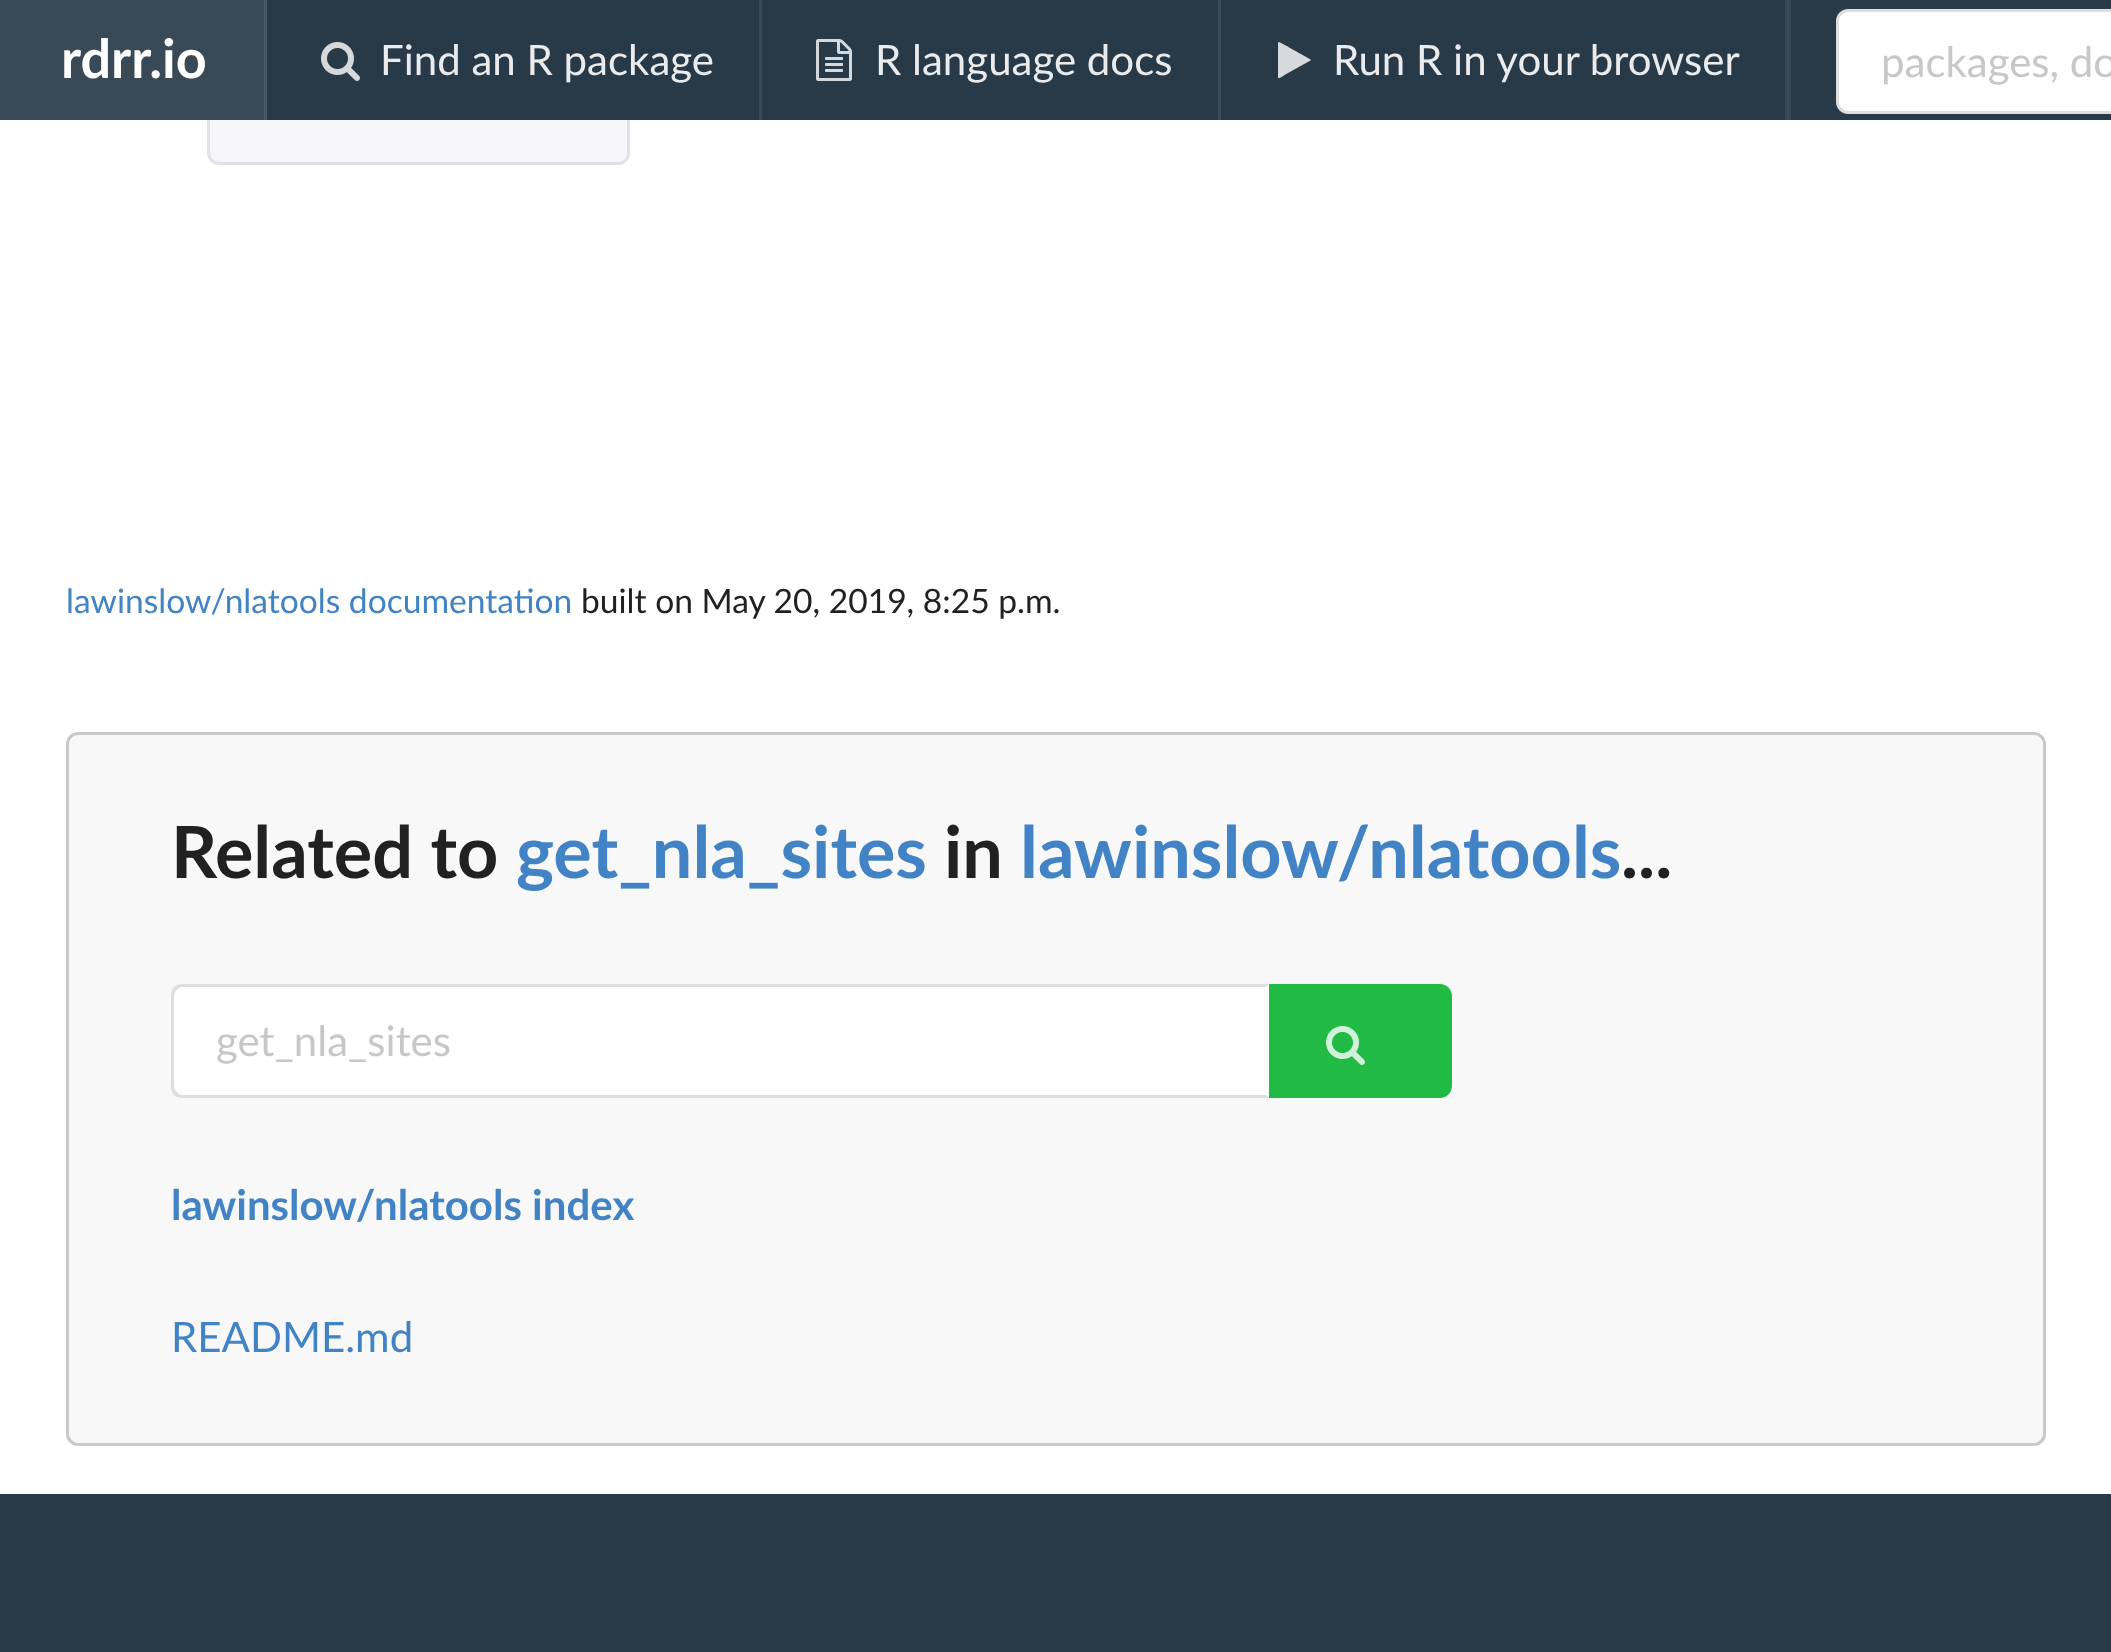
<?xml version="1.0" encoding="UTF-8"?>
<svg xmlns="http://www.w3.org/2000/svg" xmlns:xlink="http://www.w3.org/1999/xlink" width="2111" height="1652">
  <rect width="100%" height="100%" fill="#ffffff" />
  <rect x="208.5" y="25.5" width="420" height="138" rx="10.5" fill="#f7f7f9" stroke="#e1e1e8" stroke-width="3" />
  <rect x="267" width="1844" height="120" fill="#283947" />
  <rect width="264" height="120" fill="#394956" />
  <rect x="264" width="3" height="120" fill="#495864" />
  <image x="321" y="42" width="39" height="39" xlink:href="image1.png" />
  <rect x="759" width="3" height="120" fill="#394956" />
  <image x="816" y="39" width="36" height="42" xlink:href="image2.png" />
  <rect x="1218" width="3" height="120" fill="#394956" />
  <path d="M 1310.5 60.5 l -26 14.5 c -0.5 0.5 -5.5 4 -6.5 3 v -35.5 l 0.5 -0.5 c 1 -0.5 19.5 10.5 21.5 11.5 l 10.5 6 l 0.5 0.5 z" fill="#d7d9dc" />
  <rect x="1785" width="6" height="120" fill="#394956" />
  <path d="M 1848 9 h 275 v 105 h -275 c -6.5 0 -12 -5.5 -12 -12 v -81 c 0 -6.5 5.5 -12 12 -12 z" fill="#ffffff" />
  <path d="M 1848 9 c -4 0 -6 1 -9 3 l 3 3 c 1 -2 4 -3 6 -3 h 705 l 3 -3 z" fill="#222426" fill-opacity="0.15" />
  <path d="M 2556 114 l -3 -3 h -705 c -2 0 -5 -1 -6 -3 l -3 3 c 3 2 5 3 9 3 z" fill="#222426" fill-opacity="0.15" />
  <path d="M 1836 21 v 81 c 0 4 1 6 3 9 l 3 -3 c -2 -1 -3 -4 -3 -6 v -81 c 0 -3 1 -5 3 -6 l -3 -3 c -2 2 -3 6 -3 9 z" fill="#222426" fill-opacity="0.15" />
  <rect x="66" y="732" width="1980" height="714" rx="12" fill="#f8f8f9" />
  <rect x="67.5" y="733.5" width="1977" height="711" rx="10.5" fill="none" stroke="#222426" stroke-opacity="0.22" stroke-width="3" />
  <path d="M 183 984 h 1086 v 114 h -1086 c -6.5 0 -12 -5.5 -12 -12 v -90 c 0 -6.5 5.5 -12 12 -12 z" fill="#ffffff" />
  <path d="M 183 984 c -3 0 -7 1 -9 3 l 3 3 c 1 -2 3 -3 6 -3 h 1083 l 3 -3 z" fill="#222426" fill-opacity="0.15" />
  <path d="M 1269 1098 l -3 -3 h -1083 c -3 0 -5 -1 -6 -3 l -3 3 c 2 2 6 3 9 3 z" fill="#222426" fill-opacity="0.15" />
  <path d="M 171 996 v 90 c 0 4 1 6 3 9 l 3 -3 c -2 -1 -3 -4 -3 -6 v -90 c 0 -2 1 -5 3 -6 l -3 -3 c -2 3 -3 5 -3 9 z" fill="#222426" fill-opacity="0.15" />
  <path d="M 1269 984 h 171 c 6.5 0 12 5.5 12 12 v 90 c 0 6.5 -5.5 12 -12 12 h -171 z" fill="#21ba45" />
  <image x="1326" y="1026" width="39" height="39" xlink:href="image3.png" />
  <rect y="1494" width="2111" height="158" fill="#283947" />
  <text x="61" y="78" style="font-family: Lato; font-size: 54px; font-weight: bold; fill: #ffffff">rdrr.io</text>
  <text x="380" y="75" style="font-family: Lato; font-size: 42px; fill: #eaebed">Find an R package</text>
  <text x="875" y="75" style="font-family: Lato; font-size: 42px; fill: #eaebed">R language docs</text>
  <text x="1333" y="75" style="font-family: Lato; font-size: 42px; fill: #eaebed">Run R in your browser</text>
  <text x="1881" y="77" style="font-family: Lato; font-size: 42px; fill: #c7c7c7">packages, do</text>
  <text x="66" y="613" style="font-family: Lato; font-size: 33.6px; fill: #4183c4">lawinslow/nlatools documentation</text>
  <text x="581" y="613" style="font-family: Lato; font-size: 33.6px; fill: #212121">built on May 20, 2019, 8:25 p.m.</text>
  <text x="171" y="878" style="font-family: Lato; font-size: 72px; font-weight: bold; fill: #212121">Related to</text>
  <text x="516" y="878" style="font-family: Lato; font-size: 72px; font-weight: bold; fill: #4183c4">get_nla_sites</text>
  <text x="944" y="878" style="font-family: Lato; font-size: 72px; font-weight: bold; fill: #212121">in</text>
  <text x="1020" y="878" style="font-family: Lato; font-size: 72px; font-weight: bold; fill: #4183c4">lawinslow/nlatools</text>
  <text x="1621" y="878" style="font-family: Lato; font-size: 72px; font-weight: bold; fill: #212121">...</text>
  <text x="216" y="1056" style="font-family: Lato; font-size: 42px; fill: #c7c7c7">get_nla_sites</text>
  <text x="171" y="1220" style="font-family: Lato; font-size: 42px; font-weight: bold; fill: #4183c4">lawinslow/nlatools index</text>
  <text x="171" y="1352" style="font-family: Lato; font-size: 42px; fill: #4183c4">README.md</text>
</svg>
